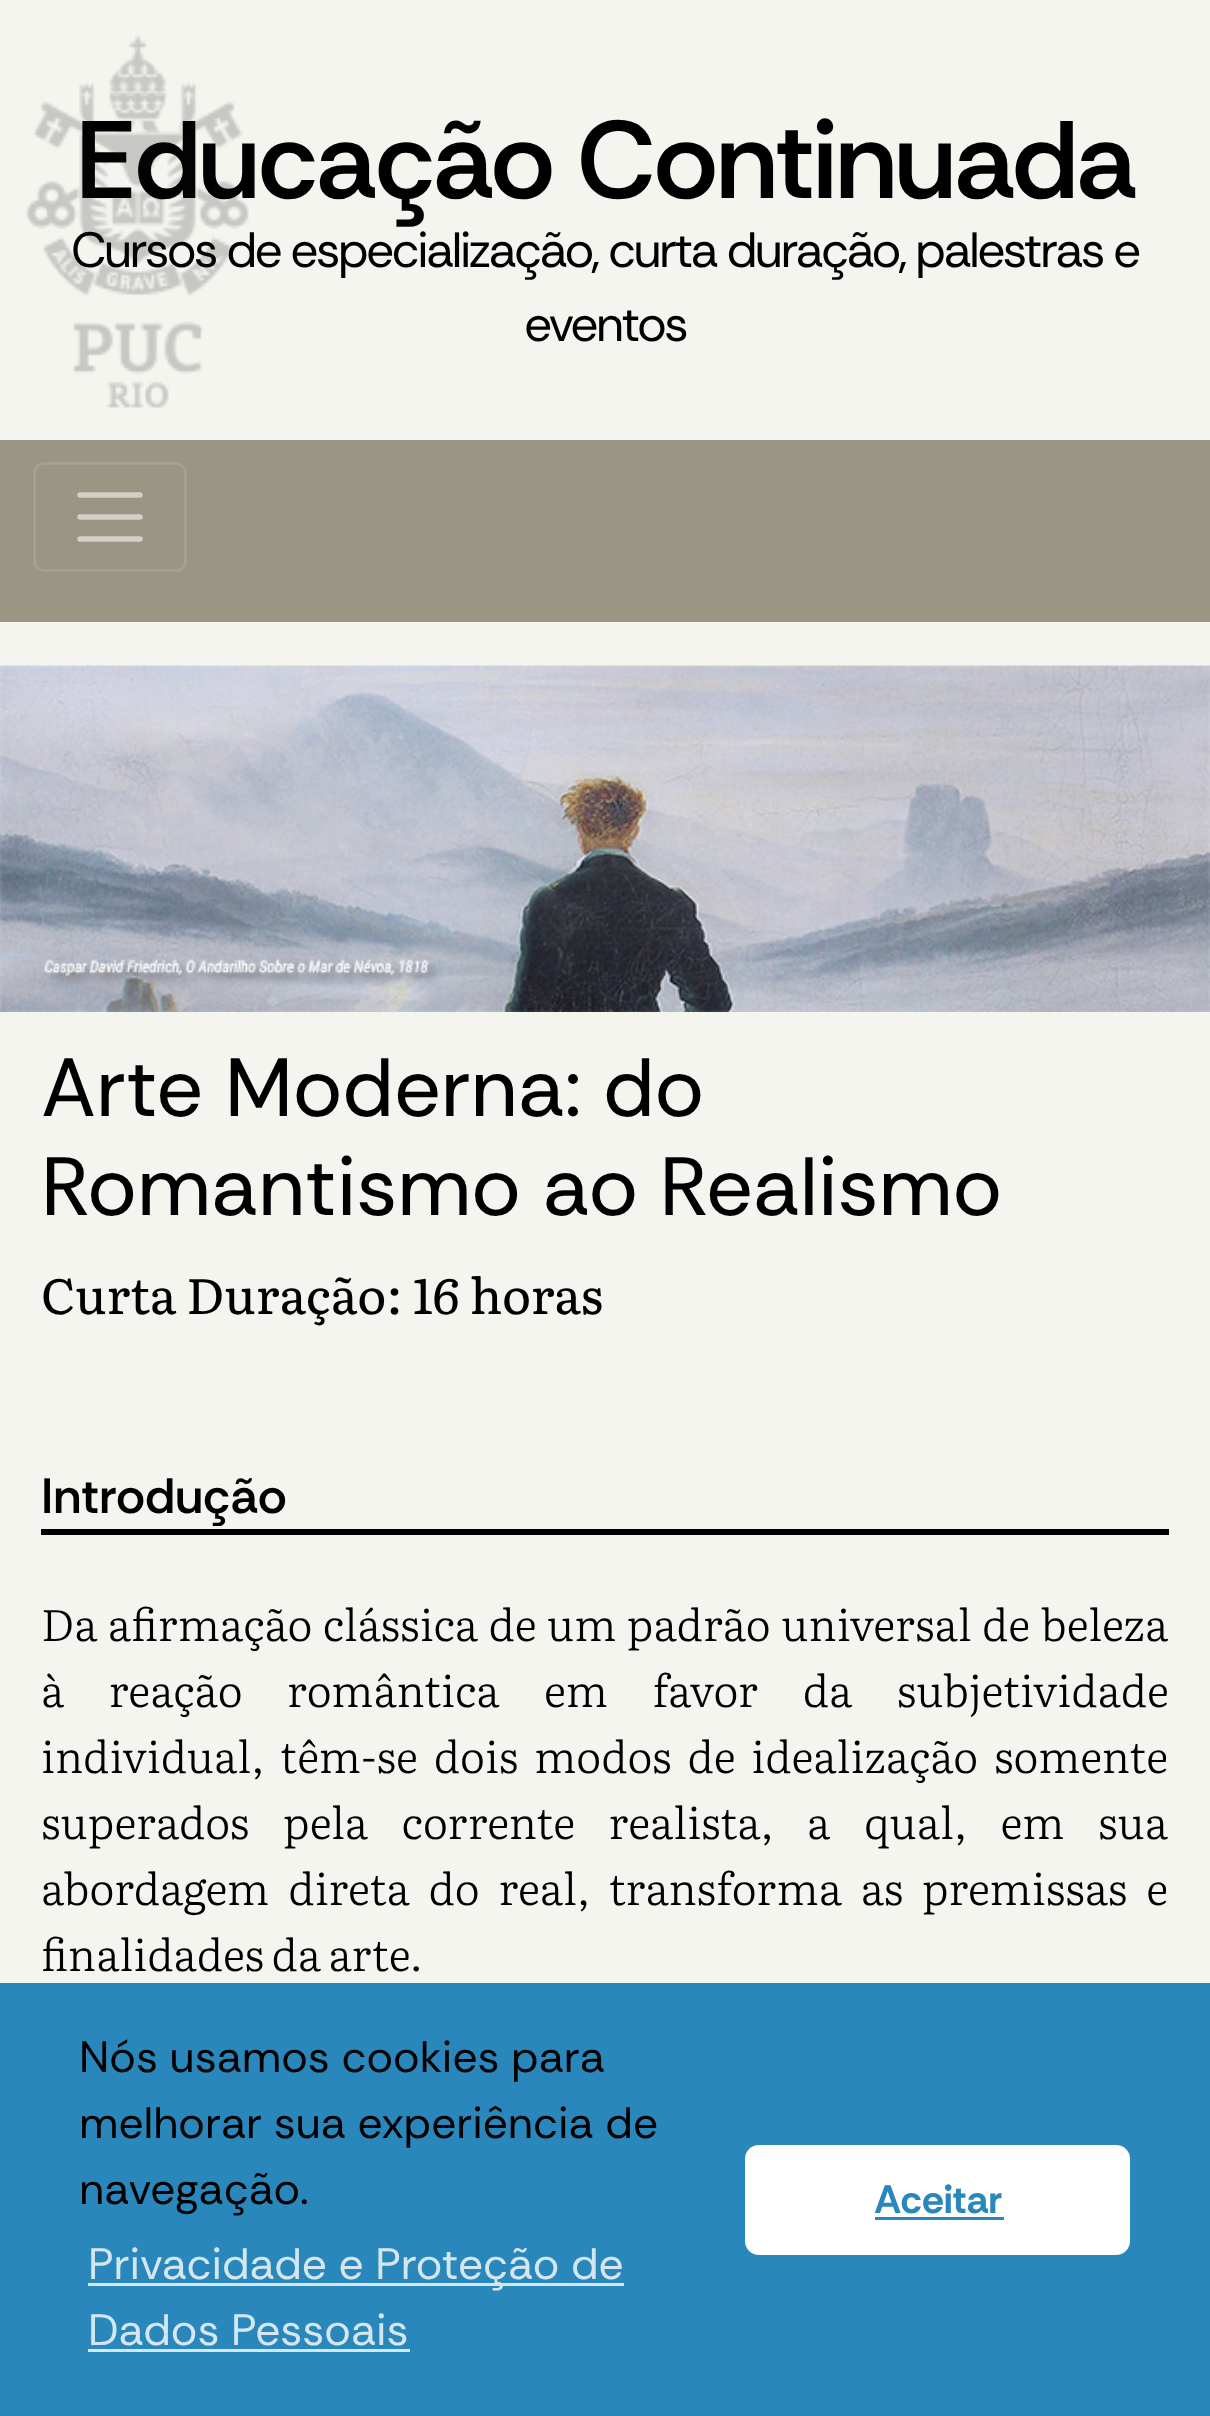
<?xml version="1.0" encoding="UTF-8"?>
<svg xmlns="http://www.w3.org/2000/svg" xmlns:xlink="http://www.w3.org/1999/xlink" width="1210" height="2416">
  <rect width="100%" height="100%" fill="#f5f5f0" />
  <rect y="440" width="1210" height="182" fill="#9b9583" />
  <rect x="34.5" y="463.5" width="151" height="107" rx="9.5" fill="none" stroke="#a5a08f" stroke-width="3" />
  <path d="M 80 495 h 60 m -60 22 h 60 m -60 22 h 60" fill="none" stroke="#d2cfc7" stroke-width="5.5" stroke-linecap="round" />
  <image x="0" y="665" width="1210" height="347" xlink:href="image2.png" />
  <rect x="41" y="1529" width="1128" height="6" fill="#000000" />
  <rect y="1983" width="1210" height="433" fill="#2a87bb" />
  <rect x="88" y="2283" width="536" height="3" fill="#d4e7f1" />
  <rect x="88" y="2349" width="322" height="3" fill="#d4e7f1" />
  <rect x="745" y="2145" width="385" height="110" rx="14" fill="#ffffff" />
  <rect x="875" y="2217" width="129" height="3" fill="#2a87bb" />
  <text x="75" y="198" style="font-family: Rethink Sans; font-size: 110px; font-weight: 600; letter-spacing: -2.75px; fill: #000000">Educação Continuada</text>
  <text x="71" y="267" style="font-family: Rethink Sans; font-size: 49.5px; letter-spacing: -2.75px; fill: #000000">Cursos de especialização, curta duração, palestras e</text>
  <image x="26" y="35" width="223" height="373" xlink:href="image1.png" />
  <text x="524" y="341" style="font-family: Rethink Sans; font-size: 49.5px; letter-spacing: -2.75px; fill: #000000">eventos</text>
  <text x="41" y="1116" style="font-family: 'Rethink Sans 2'; font-size: 82.5px; fill: #000000">Arte Moderna: do</text>
  <text x="41" y="1215" style="font-family: 'Rethink Sans 2'; font-size: 82.5px; fill: #000000">Romantismo ao Realismo</text>
  <text x="41" y="1314" style="font-family: Literata; font-size: 49.5px; fill: #000000">Curta Duração: 16 horas</text>
  <text x="41" y="1513" style="font-family: Rethink Sans; font-size: 49.5px; font-weight: 600; fill: #000000">Introdução</text>
  <text x="41" y="1641" word-spacing="1.75" style="font-family: Literata; font-size: 44px; font-weight: 300; fill: #000000">Da afirmação clássica de um padrão universal de beleza</text>
  <text x="41" y="1707" word-spacing="36" style="font-family: Literata; font-size: 44px; font-weight: 300; fill: #000000">à reação romântica em favor da subjetividade</text>
  <text x="41" y="1773" word-spacing="7.25" style="font-family: Literata; font-size: 44px; font-weight: 300; fill: #000000">individual, têm-se dois modos de idealização somente</text>
  <text x="41" y="1839" word-spacing="25" style="font-family: Literata; font-size: 44px; font-weight: 300; fill: #000000">superados pela corrente realista, a qual, em sua</text>
  <text x="41" y="1905" word-spacing="10.25" style="font-family: Literata; font-size: 44px; font-weight: 300; fill: #000000">abordagem direta do real, transforma as premissas e</text>
  <text x="41" y="1971" word-spacing="-1" style="font-family: Literata; font-size: 44px; font-weight: 300; fill: #000000">finalidades da arte.</text>
  <text x="79" y="2072" style="font-family: Rethink Sans; font-size: 44px; fill: #000000">Nós usamos cookies para</text>
  <text x="79" y="2138" style="font-family: Rethink Sans; font-size: 44px; fill: #000000">melhorar sua experiência de</text>
  <text x="79" y="2204" style="font-family: Rethink Sans; font-size: 44px; fill: #000000">navegação.</text>
  <text x="88" y="2279" style="font-family: Rethink Sans; font-size: 44px; fill: #d4e7f1">Privacidade e Proteção de</text>
  <text x="88" y="2345" style="font-family: Rethink Sans; font-size: 44px; fill: #d4e7f1">Dados Pessoais</text>
  <text x="874" y="2213" style="font-family: Rethink Sans; font-size: 39.5px; font-weight: bold; fill: #2a87bb">Aceitar</text>
</svg>
